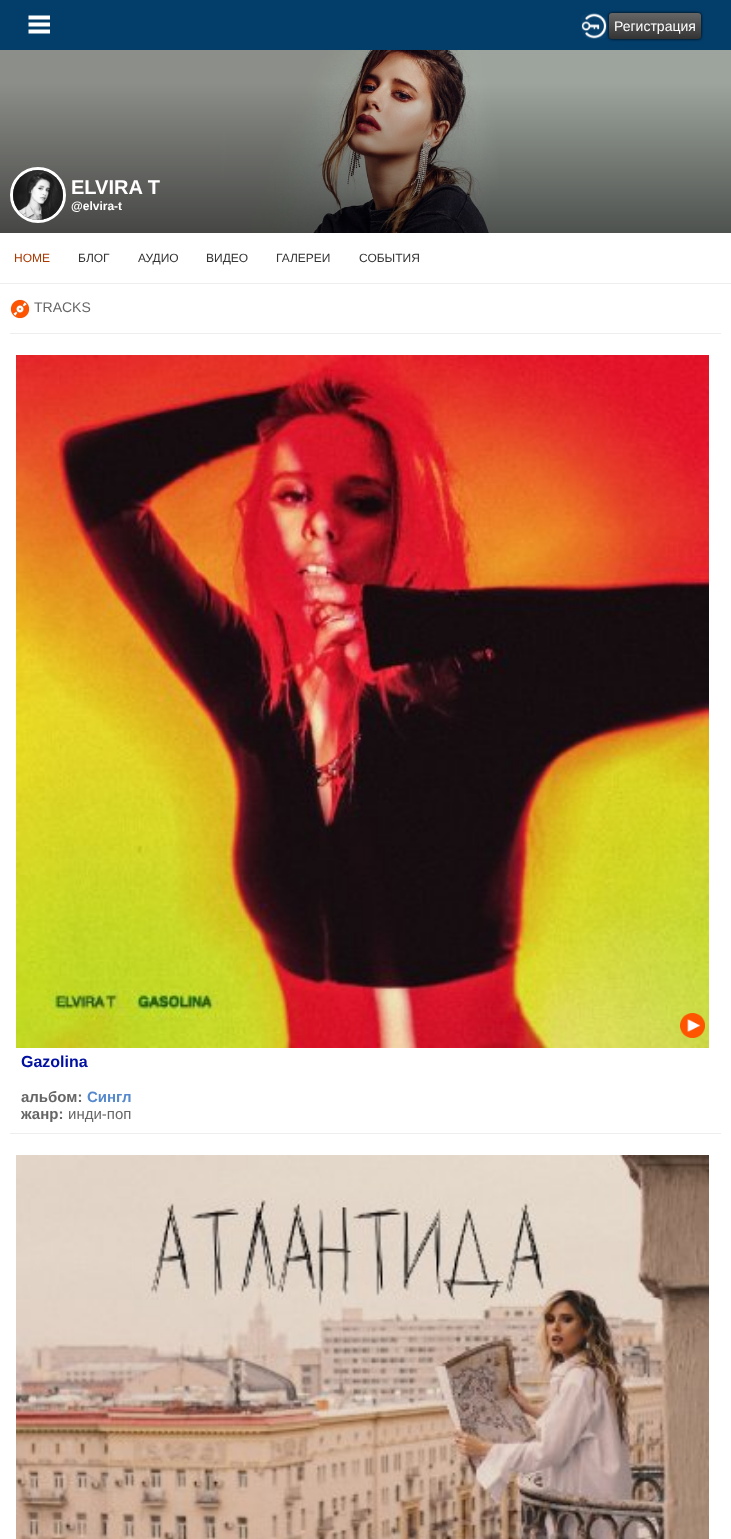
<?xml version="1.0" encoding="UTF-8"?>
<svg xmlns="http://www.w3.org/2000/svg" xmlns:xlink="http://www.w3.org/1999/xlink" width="731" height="1539">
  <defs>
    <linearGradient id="g1" gradientUnits="userSpaceOnUse" x1="655" y1="13" x2="655" y2="39"><stop offset="0" stop-color="#666666" /><stop offset="1" stop-color="#333333" /></linearGradient>
  </defs>
  <rect width="100%" height="100%" fill="#ffffff" />
  <rect width="731" height="50" fill="#033e6b" />
  <image x="28" y="15" width="22" height="19" xlink:href="image1.png" />
  <rect x="609" y="13" width="92" height="26" rx="3" fill="#000000" filter="blur(1.5px)" />
  <image x="581" y="13" width="26" height="26" xlink:href="image2.png" />
  <rect x="609" y="13" width="92" height="26" rx="3" fill="url(#g1)" />
  <image x="0" y="50" width="731" height="183" xlink:href="image3.png" />
  <circle cx="38" cy="195" r="26.5" fill="none" stroke="#ffffff" stroke-width="3" />
  <image x="13" y="170" width="50" height="50" xlink:href="image4.png" />
  <rect y="283" width="731" height="1" fill="#eeeeee" />
  <rect x="10" y="333" width="711" height="1" fill="#eeeeee" />
  <image x="10" y="299" width="20" height="20" xlink:href="image5.png" />
  <rect x="10" y="1133" width="711" height="1" fill="#eeeeee" />
  <image x="16" y="355" width="693" height="693" xlink:href="image6.png" />
  <image x="680" y="1013" width="25" height="25" xlink:href="image7.png" />
  <image x="16" y="1155" width="693" height="384" xlink:href="image8.png" />
  <text x="614" y="31" style="font-family: Liberation Sans; font-size: 14px; fill: #ffffff">Регистрация</text>
  <text x="71" y="194" style="font-family: Liberation Sans; font-size: 20px; font-weight: bold; fill: #ffffff">ELVIRA T</text>
  <text x="71" y="210" style="font-family: Liberation Sans; font-size: 12px; font-weight: bold; fill: #ffffff">@elvira-t</text>
  <text x="14" y="262" style="font-family: Liberation Sans; font-size: 12px; fill: #aa3800">HOME</text>
  <text x="78" y="262" style="font-family: Liberation Sans; font-size: 12px; fill: #333333">БЛОГ</text>
  <text x="138" y="262" style="font-family: Liberation Sans; font-size: 12px; fill: #333333">АУДИО</text>
  <text x="206" y="262" style="font-family: Liberation Sans; font-size: 12px; fill: #333333">ВИДЕО</text>
  <text x="276" y="262" style="font-family: Liberation Sans; font-size: 12px; fill: #333333">ГАЛЕРЕИ</text>
  <text x="359" y="262" style="font-family: Liberation Sans; font-size: 12px; fill: #333333">СОБЫТИЯ</text>
  <text x="34" y="312" style="font-family: Liberation Sans; font-size: 14px; fill: #666666">TRACKS</text>
  <text x="21" y="1067" style="font-family: Liberation Sans; font-size: 16px; font-weight: bold; fill: #0010a0">Gazolina</text>
  <text x="21" y="1102" style="font-family: Liberation Sans; font-size: 15px; font-weight: bold; fill: #666666">альбом:</text>
  <text x="87" y="1102" style="font-family: Liberation Sans; font-size: 15px; font-weight: bold; fill: #5588cc">Сингл</text>
  <text x="21" y="1119" style="font-family: Liberation Sans; font-size: 15px; font-weight: bold; fill: #666666">жанр:</text>
  <text x="68" y="1119" style="font-family: Liberation Sans; font-size: 15px; fill: #666666">инди-поп</text>
</svg>
